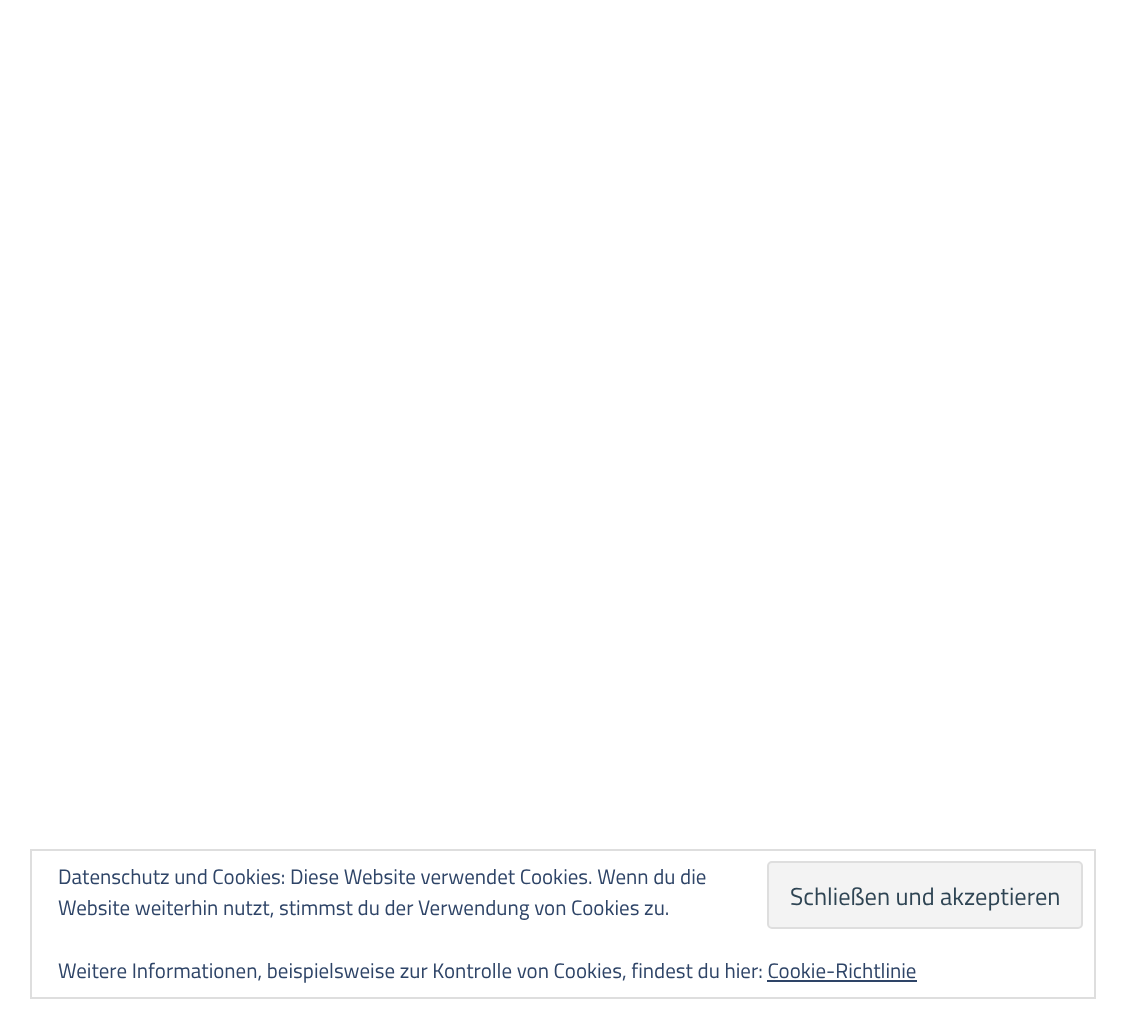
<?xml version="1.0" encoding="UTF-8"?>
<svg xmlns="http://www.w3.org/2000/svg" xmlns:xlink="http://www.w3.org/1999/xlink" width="1124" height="1029">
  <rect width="100%" height="100%" fill="#ffffff" />
  <rect x="31" y="850" width="1064" height="148" fill="none" stroke="#dedede" stroke-width="2" />
  <rect x="768" y="862" width="314" height="66" rx="4" fill="#f3f3f3" stroke="#dedede" stroke-width="2" />
  <rect x="767" y="980" width="150" height="2" fill="#2e4467" />
  <text x="58" y="884" style="font-family: Titillium Web; font-size: 21px; fill: #2e4467">Datenschutz und Cookies: Diese Website verwendet Cookies. Wenn du die</text>
  <text x="58" y="915" style="font-family: Titillium Web; font-size: 21px; fill: #2e4467">Website weiterhin nutzt, stimmst du der Verwendung von Cookies zu.</text>
  <text x="790" y="905" style="font-family: Titillium Web; font-size: 24.5px; fill: #2e4453">Schließen und akzeptieren</text>
  <text x="58" y="978" style="font-family: Titillium Web; font-size: 21px; fill: #2e4467">Weitere Informationen, beispielsweise zur Kontrolle von Cookies, findest du hier: Cookie-Richtlinie</text>
</svg>
